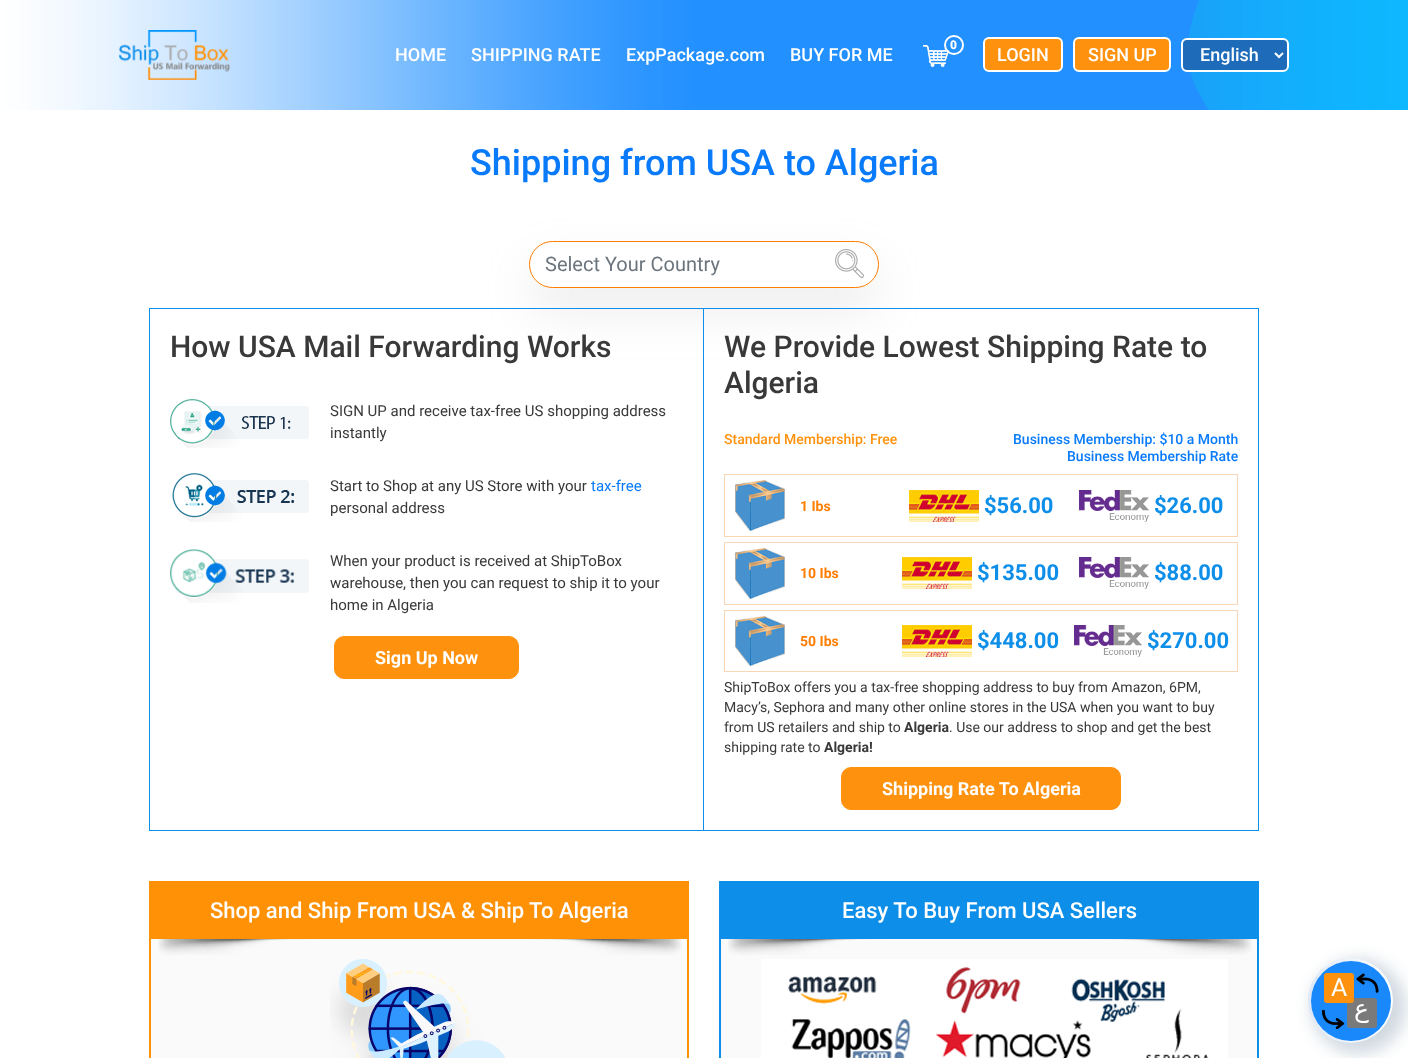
<?xml version="1.0" encoding="UTF-8"?>
<svg xmlns="http://www.w3.org/2000/svg" xmlns:xlink="http://www.w3.org/1999/xlink" width="1408" height="1058">
  <defs>
    <clipPath id="clip1"><path d="M 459 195 h 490 v 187 h -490 z m 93.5 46 h 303 c 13 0 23.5 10.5 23.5 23.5 c 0 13 -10.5 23.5 -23.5 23.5 h -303 c -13 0 -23.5 -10.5 -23.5 -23.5 c 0 -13 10.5 -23.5 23.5 -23.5 z" clip-rule="evenodd" /></clipPath>
    <linearGradient id="g1" gradientUnits="userSpaceOnUse" x1="1308" y1="1001" x2="1393" y2="1001"><stop offset="0" stop-color="#dee8f8" /><stop offset="1" stop-color="#ffffff" /></linearGradient>
  </defs>
  <rect width="100%" height="100%" fill="#ffffff" />
  <image x="0" y="0" width="1408" height="110" xlink:href="image1.png" />
  <image x="119" y="30" width="111" height="50" xlink:href="image2.png" />
  <image x="923" y="45" width="26" height="22" xlink:href="image3.png" />
  <circle cx="954" cy="45" r="9" fill="none" stroke="#ffffff" stroke-width="2" />
  <rect x="984" y="38" width="78" height="33" rx="5" fill="#fe920f" stroke="#ffffff" stroke-width="2" />
  <rect x="1074" y="38" width="96" height="33" rx="5" fill="#fe920f" stroke="#ffffff" stroke-width="2" />
  <rect x="1182" y="39" width="106" height="32" rx="5" fill="#1d6bb9" stroke="#ffffff" stroke-width="2" />
  <path d="M 1275 53 l 4 4 l 4 -4" fill="none" stroke="#ffffff" stroke-width="2" />
  <g clip-path="url(#clip1)">
    <rect x="529" y="265" width="350" height="47" rx="23.5" fill="#a6a6a6" fill-opacity="0.2" filter="blur(23px)" />
  </g>
  <rect x="529.5" y="241.5" width="349" height="46" rx="23" fill="none" stroke="#ff7d00" />
  <image x="835" y="249" width="29" height="29" xlink:href="image4.png" />
  <rect x="149.5" y="308.5" width="1109" height="522" fill="none" stroke="#0d8ee9" />
  <rect x="703" y="309" width="1" height="521" fill="#0d8ee9" />
  <image x="170" y="399" width="139" height="49" xlink:href="image5.png" />
  <image x="172" y="472" width="137" height="50" xlink:href="image6.png" />
  <image x="169" y="549" width="140" height="54" xlink:href="image7.png" />
  <rect x="334.5" y="636.5" width="184" height="42" rx="9.5" fill="#fe920f" stroke="#fe920f" />
  <rect x="724.5" y="474.5" width="513" height="62" fill="none" stroke="#f9d7b6" />
  <image x="735" y="480" width="50" height="51" xlink:href="image8.png" />
  <image x="909" y="490" width="70" height="32" xlink:href="image9.png" />
  <image x="1079" y="490" width="70" height="32" xlink:href="image10.png" />
  <rect x="724.5" y="542.5" width="513" height="62" fill="none" stroke="#f9d7b6" />
  <image x="735" y="548" width="50" height="51" xlink:href="image8.png" />
  <image x="902" y="557" width="70" height="32" xlink:href="image11.png" />
  <image x="1079" y="557" width="70" height="32" xlink:href="image10.png" />
  <rect x="724.5" y="610.5" width="513" height="61" fill="none" stroke="#f9d7b6" />
  <image x="735" y="616" width="50" height="50" xlink:href="image12.png" />
  <image x="902" y="625" width="70" height="32" xlink:href="image11.png" />
  <image x="1074" y="625" width="68" height="32" xlink:href="image13.png" />
  <rect x="841.5" y="767.5" width="279" height="42" rx="9.5" fill="#fe920f" stroke="#fe920f" />
  <rect x="150" y="882" width="538" height="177" fill="none" stroke="#ff9107" stroke-width="2" />
  <rect x="151" y="883" width="536" height="56" fill="#ff9107" />
  <rect x="151" y="939" width="536" height="119" fill="#fafafa" />
  <image x="158" y="939" width="524" height="16" xlink:href="image14.png" />
  <image x="330" y="959" width="176" height="99" xlink:href="image15.png" />
  <rect x="720" y="882" width="538" height="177" fill="none" stroke="#0d8ee9" stroke-width="2" />
  <rect x="721" y="883" width="536" height="56" fill="#0d8ee9" />
  <rect x="721" y="939" width="536" height="119" fill="#fafafa" />
  <image x="728" y="939" width="524" height="16" xlink:href="image16.png" />
  <image x="761" y="959" width="467" height="99" xlink:href="image17.png" />
  <rect x="1311" y="959" width="95" height="95" rx="47.5" fill="#c9d2dc" fill-opacity="0.85" filter="blur(8px)" />
  <circle cx="1350.5" cy="1000.5" r="42.5" fill="url(#g1)" />
  <circle cx="1351" cy="1001" r="40" fill="#1888fa" />
  <image x="1322" y="973" width="57" height="56" xlink:href="image18.png" />
  <rect x="1347" y="998" width="30" height="30" rx="3" fill="#7a7a7a" />
  <rect x="1324" y="973" width="30" height="30" rx="3" fill="#fe920f" />
  <text x="950" y="49" style="font-family: Roboto; font-size: 12px; font-weight: 900; fill: #ffffff">0</text>
  <text x="395" y="61" style="font-family: Roboto; font-size: 18px; font-weight: 500; fill: #ffffff">HOME</text>
  <text x="471" y="61" style="font-family: Roboto; font-size: 18px; font-weight: 500; fill: #ffffff">SHIPPING RATE</text>
  <text x="626" y="61" style="font-family: Roboto; font-size: 18px; font-weight: 500; fill: #ffffff">ExpPackage.com</text>
  <text x="790" y="61" style="font-family: Roboto; font-size: 18px; font-weight: 500; fill: #ffffff">BUY FOR ME</text>
  <text x="997" y="61" style="font-family: Roboto; font-size: 18px; font-weight: 500; fill: #ffffff">LOGIN</text>
  <text x="1088" y="61" style="font-family: Roboto; font-size: 18px; font-weight: 500; fill: #ffffff">SIGN UP</text>
  <text x="1200" y="61" style="font-family: Roboto; font-size: 18px; font-weight: 500; fill: #ffffff">English</text>
  <text x="470" y="175" style="font-family: Roboto; font-size: 36px; font-weight: 500; fill: #097bfa">Shipping from USA to Algeria</text>
  <text x="545" y="271" style="font-family: Roboto; font-size: 20px; fill: #6c757d">Select Your Country</text>
  <text x="170" y="357" style="font-family: Roboto; font-size: 30px; font-weight: 500; fill: #393939">How USA Mail Forwarding Works</text>
  <text x="330" y="416" style="font-family: Roboto; font-size: 15px; fill: #393939">SIGN UP and receive tax-free US shopping address</text>
  <text x="330" y="438" style="font-family: Roboto; font-size: 15px; fill: #393939">instantly</text>
  <text x="330" y="491" style="font-family: Roboto; font-size: 15px; fill: #393939">Start to Shop at any US Store with your</text>
  <text x="591" y="491" style="font-family: Roboto; font-size: 15px; fill: #097bfa">tax-free</text>
  <text x="330" y="513" style="font-family: Roboto; font-size: 15px; fill: #393939">personal address</text>
  <text x="330" y="566" style="font-family: Roboto; font-size: 15px; fill: #393939">When your product is received at ShipToBox</text>
  <text x="330" y="588" style="font-family: Roboto; font-size: 15px; fill: #393939">warehouse, then you can request to ship it to your</text>
  <text x="330" y="610" style="font-family: Roboto; font-size: 15px; fill: #393939">home in Algeria</text>
  <text x="375" y="664" style="font-family: Roboto; font-size: 18px; font-weight: bold; fill: #ffffff">Sign Up Now</text>
  <text x="724" y="357" style="font-family: Roboto; font-size: 30px; font-weight: 500; fill: #393939">We Provide Lowest Shipping Rate to</text>
  <text x="724" y="393" style="font-family: Roboto; font-size: 30px; font-weight: 500; fill: #393939">Algeria</text>
  <text x="724" y="444" style="font-family: Roboto; font-size: 14px; font-weight: 500; fill: #fe920f">Standard Membership: Free</text>
  <text x="1013" y="444" style="font-family: Roboto; font-size: 14px; font-weight: 500; fill: #097bfa">Business Membership: $10 a Month</text>
  <text x="1067" y="461" style="font-family: Roboto; font-size: 14px; font-weight: 500; fill: #097bfa">Business Membership Rate</text>
  <text x="800" y="511" style="font-family: Roboto; font-size: 14px; font-weight: bold; fill: #ff7d00">1 Ibs</text>
  <text x="984" y="513" style="font-family: Roboto; font-size: 22px; font-weight: bold; fill: #0d8ee9">$56.00</text>
  <text x="1154" y="513" style="font-family: Roboto; font-size: 22px; font-weight: bold; fill: #0d8ee9">$26.00</text>
  <text x="800" y="578" style="font-family: Roboto; font-size: 14px; font-weight: bold; fill: #ff7d00">10 Ibs</text>
  <text x="977" y="580" style="font-family: Roboto; font-size: 22px; font-weight: bold; fill: #0d8ee9">$135.00</text>
  <text x="1154" y="580" style="font-family: Roboto; font-size: 22px; font-weight: bold; fill: #0d8ee9">$88.00</text>
  <text x="800" y="646" style="font-family: Roboto; font-size: 14px; font-weight: bold; fill: #ff7d00">50 Ibs</text>
  <text x="977" y="648" style="font-family: Roboto; font-size: 22px; font-weight: bold; fill: #0d8ee9">$448.00</text>
  <text x="1147" y="648" style="font-family: Roboto; font-size: 22px; font-weight: bold; fill: #0d8ee9">$270.00</text>
  <text x="724" y="692" style="font-family: Roboto; font-size: 14px; fill: #393939">ShipToBox offers you a tax-free shopping address to buy from Amazon, 6PM,</text>
  <text x="724" y="712" style="font-family: Roboto; font-size: 14px; fill: #393939">Macy’s, Sephora and many other online stores in the USA when you want to buy</text>
  <text x="724" y="732" style="font-family: Roboto; font-size: 14px; fill: #393939">from US retailers and ship to</text>
  <text x="904" y="732" style="font-family: Roboto; font-size: 14px; font-weight: bold; fill: #393939">Algeria</text>
  <text x="949" y="732" style="font-family: Roboto; font-size: 14px; fill: #393939">. Use our address to shop and get the best</text>
  <text x="724" y="752" style="font-family: Roboto; font-size: 14px; fill: #393939">shipping rate to</text>
  <text x="824" y="752" style="font-family: Roboto; font-size: 14px; font-weight: bold; fill: #393939">Algeria!</text>
  <text x="882" y="795" style="font-family: Roboto; font-size: 18px; font-weight: bold; fill: #ffffff">Shipping Rate To Algeria</text>
  <text x="210" y="918" style="font-family: Roboto; font-size: 22px; font-weight: 500; fill: #ffffff">Shop and Ship From USA &amp; Ship To Algeria</text>
  <text x="842" y="918" style="font-family: Roboto; font-size: 22px; font-weight: 500; fill: #ffffff">Easy To Buy From USA Sellers</text>
  <text x="1331" y="996" style="font-family: Roboto; font-size: 25px; fill: #ffffff">A</text>
  <text x="1369" y="1017" style="font-family: DejaVu Sans; font-size: 25px; direction: rtl; fill: #ffffff">ع</text>
</svg>
